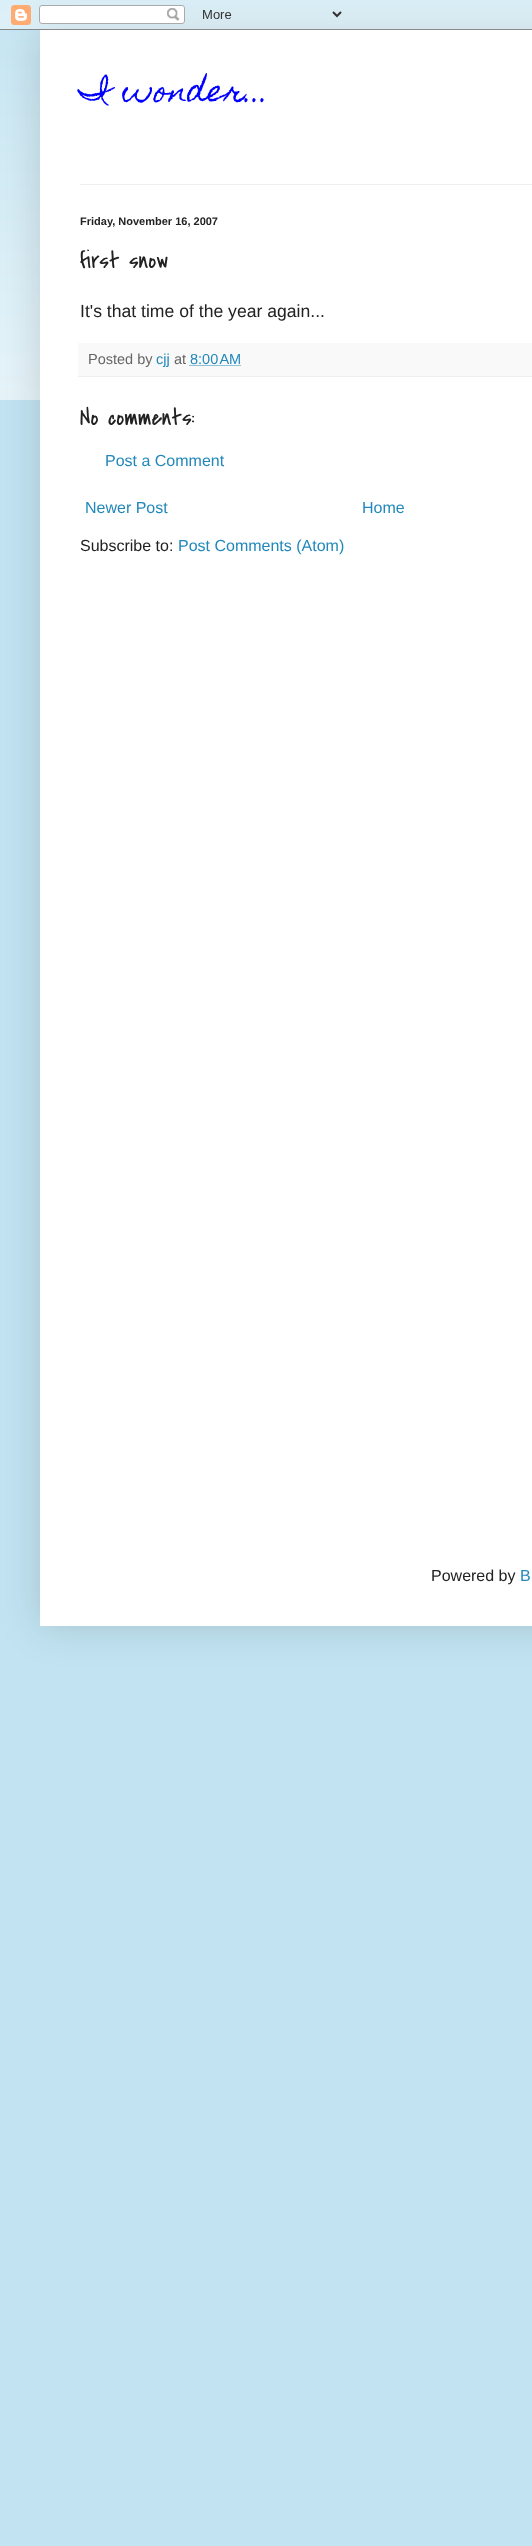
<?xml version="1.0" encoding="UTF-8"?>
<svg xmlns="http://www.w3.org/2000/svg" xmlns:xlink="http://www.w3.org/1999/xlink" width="532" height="2546">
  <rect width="100%" height="100%" fill="#c2e4f2" />
  <image x="0" y="10" width="532" height="390" xlink:href="image2.png" />
  <rect x="40" y="30" width="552" height="1596" fill="#000000" fill-opacity="0.15" filter="blur(20px)" />
  <image x="0" y="0" width="532" height="30" xlink:href="image1.png" />
  <rect x="40" y="30" width="492" height="1596" fill="#ffffff" />
  <rect x="80" y="184" width="452" height="1" fill="#eeeeee" />
  <rect x="78" y="343" width="454" height="33" fill="#f9f9f9" />
  <rect x="78" y="376" width="454" height="1" fill="#eeeeee" />
  <path d="M 189.5 365.5 h 51" fill="none" stroke="#2288bb" stroke-dasharray="1 1" />
  <text x="80" y="101" style="font-family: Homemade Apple; font-size: 30px; fill: #0000ff">I wonder...</text>
  <text x="80" y="225" style="font-family: Liberation Sans; font-size: 11px; font-weight: bold; fill: #222222">Friday, November 16, 2007</text>
  <text x="80" y="268" style="font-family: Covered By Your Grace; font-size: 24px; fill: #222222">first snow</text>
  <text x="80" y="317" style="font-family: Arimo; font-size: 17.6px; fill: #222222">It's that time of the year again...</text>
  <text x="88" y="364" style="font-family: Arimo; font-size: 14.5px; fill: #666666">Posted by</text>
  <text x="156" y="364" style="font-family: Arimo; font-size: 14.5px; fill: #2288bb">cjj</text>
  <text x="174" y="364" style="font-family: Arimo; font-size: 14.5px; fill: #666666">at</text>
  <text x="190" y="364" style="font-family: Arimo; font-size: 14.5px; fill: #2288bb">8:00 AM</text>
  <text x="80" y="425" style="font-family: Covered By Your Grace; font-size: 24px; fill: #222222">No comments:</text>
  <text x="105" y="466" style="font-family: Arimo; font-size: 16px; fill: #2288bb">Post a Comment</text>
  <text x="85" y="513" style="font-family: Arimo; font-size: 16px; fill: #2288bb">Newer Post</text>
  <text x="362" y="513" style="font-family: Arimo; font-size: 16px; fill: #2288bb">Home</text>
  <text x="80" y="551" style="font-family: Arimo; font-size: 16px; fill: #222222">Subscribe to:</text>
  <text x="178" y="551" style="font-family: Arimo; font-size: 16px; fill: #2288bb">Post Comments (Atom)</text>
  <text x="431" y="1581" style="font-family: Arimo; font-size: 16px; fill: #222222">Powered by</text>
  <text x="520" y="1581" style="font-family: Arimo; font-size: 16px; fill: #2288bb">B</text>
</svg>
